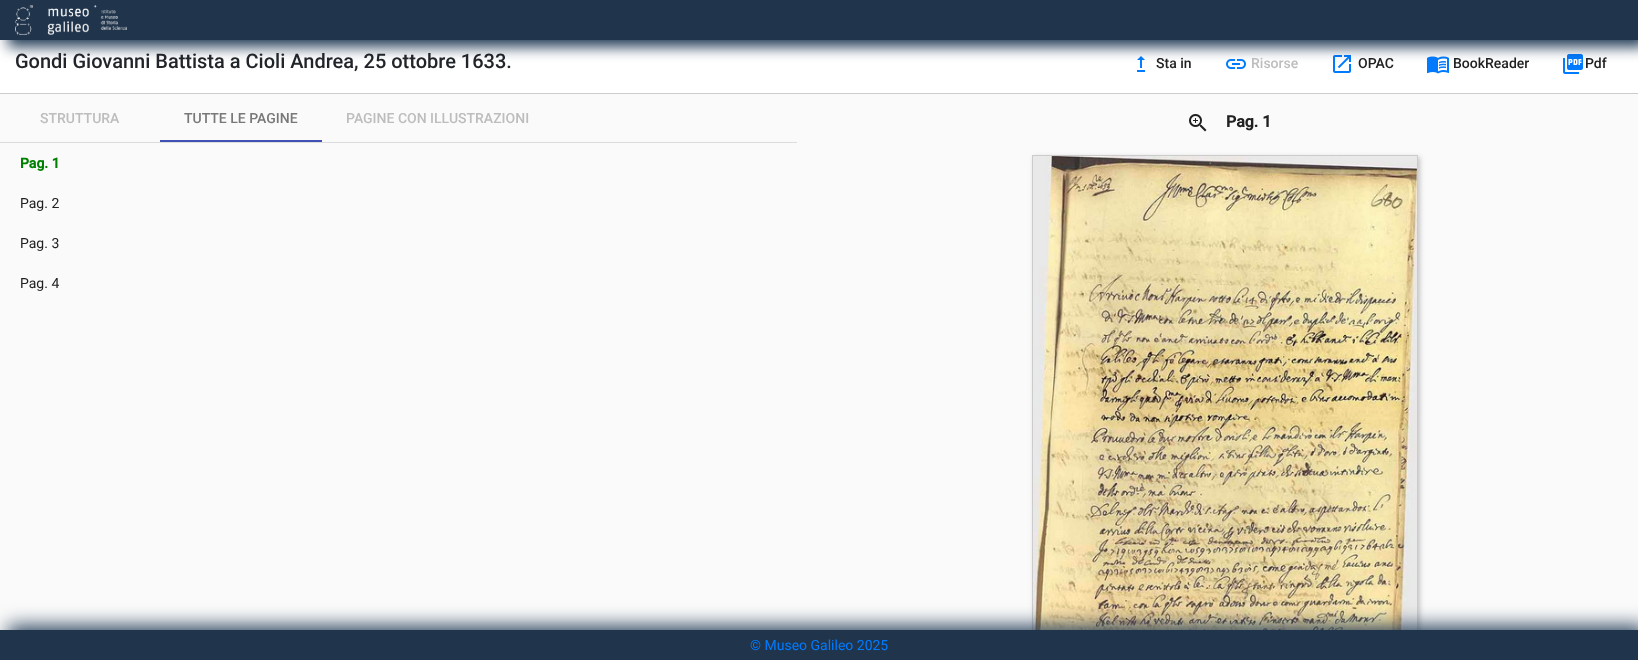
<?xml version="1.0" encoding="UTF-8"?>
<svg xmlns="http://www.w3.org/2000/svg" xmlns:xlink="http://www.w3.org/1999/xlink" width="1638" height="660">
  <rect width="100%" height="100%" fill="#ffffff" />
  <image x="1137" y="56" width="8" height="16" xlink:href="image2.png" />
  <image x="1226" y="59" width="20" height="10" xlink:href="image3.png" />
  <image x="1333" y="55" width="18" height="18" xlink:href="image4.png" />
  <image x="1427" y="56" width="22" height="18" xlink:href="image5.png" />
  <image x="1563" y="54" width="20" height="20" xlink:href="image6.png" />
  <rect x="8" y="7" width="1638" height="40" fill="#253e59" filter="blur(7px)" />
  <rect width="1638" height="40" fill="#20344b" />
  <image x="15" y="5" width="112" height="30" xlink:href="image1.png" />
  <rect y="93" width="1638" height="1" fill="#cccccc" />
  <rect y="94" width="1638" height="536" fill="#fafafa" />
  <rect y="142" width="797" height="1" fill="#dcdcdc" />
  <rect x="160" y="140" width="162" height="2" fill="#3f51b5" />
  <image x="1189" y="114" width="18" height="18" xlink:href="image7.png" />
  <rect x="1034" y="157" width="386" height="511" fill="#222222" fill-opacity="0.25" filter="blur(2.5px)" />
  <rect x="1032.5" y="155.5" width="385" height="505" fill="none" stroke="#cccccc" />
  <image x="1033" y="156" width="384" height="474" xlink:href="image8.png" />
  <rect x="8" y="626" width="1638" height="30" fill="#253e59" filter="blur(9.5px)" />
  <rect y="630" width="1638" height="30" fill="#20344b" />
  <text x="15" y="68" style="font-family: Roboto; font-size: 20px; font-weight: 500; fill: #212529">Gondi Giovanni Battista a Cioli Andrea, 25 ottobre 1633.</text>
  <text x="1156" y="68" style="font-family: Roboto; font-size: 14px; font-weight: 500; fill: #212121">Sta in</text>
  <text x="1251" y="68" style="font-family: Roboto; font-size: 14px; font-weight: 500; fill: #bdbdbd">Risorse</text>
  <text x="1358" y="68" style="font-family: Roboto; font-size: 14px; font-weight: 500; fill: #212121">OPAC</text>
  <text x="1453" y="68" style="font-family: Roboto; font-size: 14px; font-weight: 500; fill: #212121">BookReader</text>
  <text x="1585" y="68" style="font-family: Roboto; font-size: 14px; font-weight: 500; fill: #212121">Pdf</text>
  <text x="40" y="123" style="font-family: Roboto; font-size: 14px; font-weight: 500; fill: #bdbdbd">STRUTTURA</text>
  <text x="184" y="123" style="font-family: Roboto; font-size: 14px; font-weight: 500; fill: #787878">TUTTE LE PAGINE</text>
  <text x="346" y="123" style="font-family: Roboto; font-size: 14px; font-weight: 500; fill: #bdbdbd">PAGINE CON ILLUSTRAZIONI</text>
  <text x="20" y="168" style="font-family: Roboto; font-size: 14px; font-weight: bold; fill: #008000">Pag. 1</text>
  <text x="20" y="208" style="font-family: Roboto; font-size: 14px; fill: #212121">Pag. 2</text>
  <text x="20" y="248" style="font-family: Roboto; font-size: 14px; fill: #212121">Pag. 3</text>
  <text x="20" y="288" style="font-family: Roboto; font-size: 14px; fill: #212121">Pag. 4</text>
  <text x="1226" y="127" style="font-family: Roboto; font-size: 16px; font-weight: bold; fill: #212121">Pag. 1</text>
  <text x="750" y="650" style="font-family: Roboto; font-size: 14px; fill: #007bff">© Museo Galileo 2025</text>
</svg>
